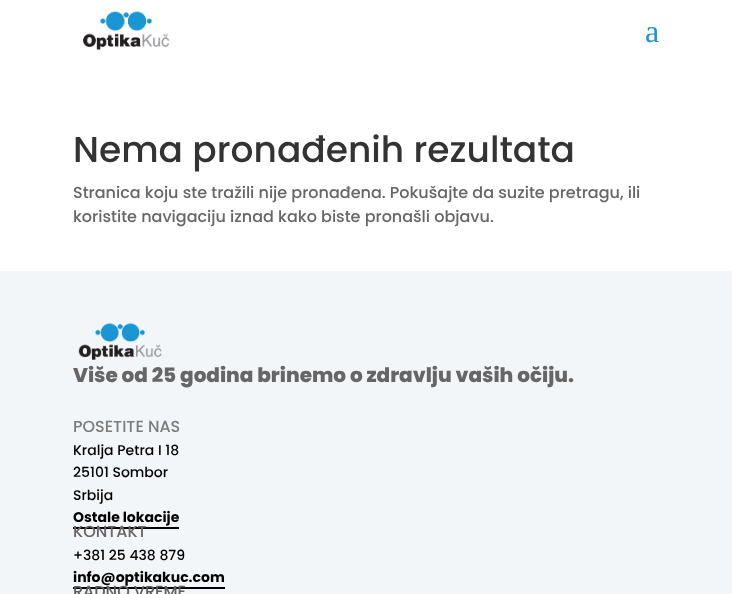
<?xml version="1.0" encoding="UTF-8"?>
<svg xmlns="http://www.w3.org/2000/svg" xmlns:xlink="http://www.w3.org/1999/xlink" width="732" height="594">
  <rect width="100%" height="100%" fill="#ffffff" />
  <image x="83" y="11" width="87" height="39" xlink:href="image1.png" />
  <rect y="271" width="732" height="323" fill="#f3f6f8" />
  <image x="78" y="323" width="84" height="37" xlink:href="image2.png" />
  <rect x="73" y="527" width="106" height="2" fill="#000000" />
  <rect x="73" y="587" width="152" height="2" fill="#000000" />
  <text x="645" y="42" style="font-family: Liberation Serif; font-size: 32px; fill: #1996d3">a</text>
  <text x="73" y="162" style="font-family: Poppins; font-size: 36px; font-weight: 500; fill: #333333">Nema pronađenih rezultata</text>
  <text x="73" y="198" style="font-family: Poppins; font-size: 16px; font-weight: 500; fill: #666666">Stranica koju ste tražili nije pronađena. Pokušajte da suzite pretragu, ili</text>
  <text x="73" y="222" style="font-family: Poppins; font-size: 16px; font-weight: 500; fill: #666666">koristite navigaciju iznad kako biste pronašli objavu.</text>
  <text x="73" y="382" style="font-family: Poppins; font-size: 20px; font-weight: 800; fill: #666666">Više od 25 godina brinemo o zdravlju vaših očiju.</text>
  <text x="73" y="432" style="font-family: Poppins; font-size: 16px; font-weight: 500; fill: #7b7c7d">POSETITE NAS</text>
  <text x="73" y="455" style="font-family: Poppins; font-size: 14px; font-weight: 500; fill: #000000">Kralja Petra I 18</text>
  <text x="73" y="477" style="font-family: Poppins; font-size: 14px; font-weight: 500; fill: #000000">25101 Sombor</text>
  <text x="73" y="500" style="font-family: Poppins; font-size: 14px; font-weight: 500; fill: #000000">Srbija</text>
  <text x="73" y="522" style="font-family: Poppins; font-size: 14px; font-weight: bold; fill: #000000">Ostale lokacije</text>
  <text x="73" y="537" style="font-family: Poppins; font-size: 16px; font-weight: 500; fill: #666666">KONTAKT</text>
  <text x="73" y="560" style="font-family: Poppins; font-size: 14px; font-weight: 500; fill: #000000">+381 25 438 879</text>
  <text x="73" y="582" style="font-family: Poppins; font-size: 14px; font-weight: bold; fill: #000000">info@optikakuc.com</text>
  <text x="73" y="597" style="font-family: Poppins; font-size: 16px; font-weight: 500; fill: #5f6061">RADNO VREME</text>
</svg>
